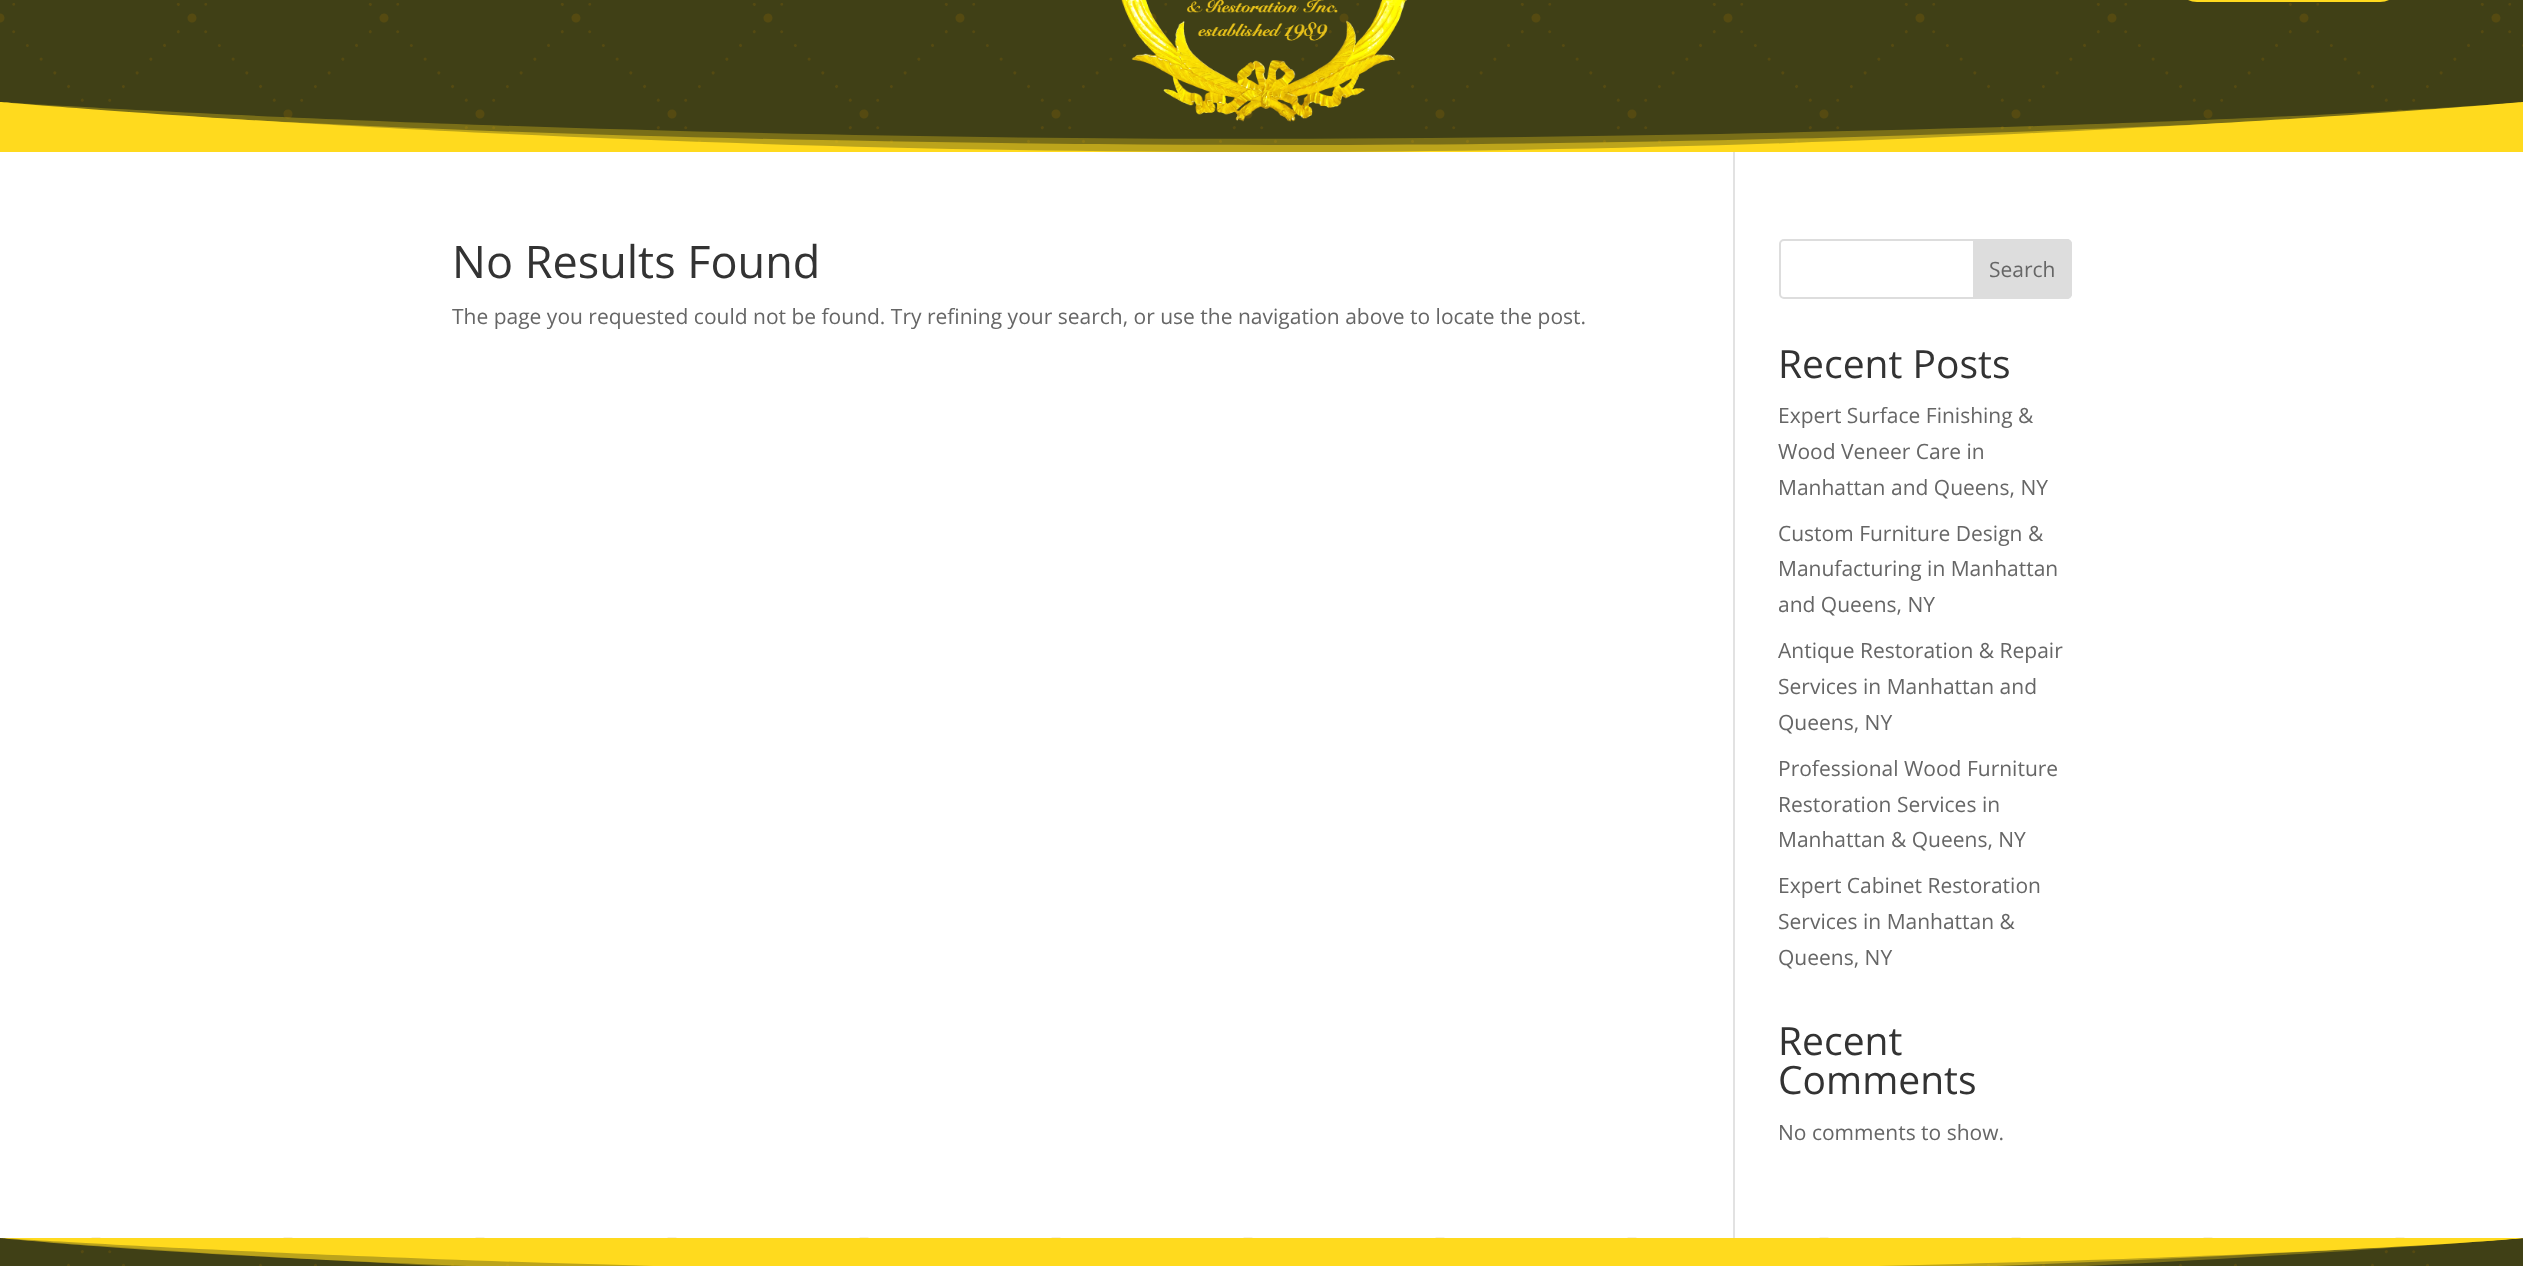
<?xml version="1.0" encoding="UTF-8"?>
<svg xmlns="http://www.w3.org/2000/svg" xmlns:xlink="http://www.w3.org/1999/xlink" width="2523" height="1266">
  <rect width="100%" height="100%" fill="#ffffff" />
  <rect width="2523" height="152" fill="#404016" />
  <rect x="2184" y="-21" width="209" height="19" rx="13" fill="none" stroke="#ffda1e" stroke-width="8" />
  <image x="0" y="3" width="2523" height="140" xlink:href="image2.png" />
  <path d="M 1430 138 c -789 7 -1430 -36 -1430 -36 v 50 h 2523 v -50 c 0 0 -305 28 -1093 36 z" fill="#ffda1e" fill-opacity="0.3" />
  <path d="M 1097 144 c 782 8 1426 -37 1426 -37 v 45 h -2523 v -50 c 0 0 314 35 1097 42 z" fill="#ffda1e" fill-opacity="0.5" />
  <path d="M 1262 152 c 696 0 1261 -50 1261 -50 v 50 h -2523 v -50 c 0 0 565 50 1262 50 z" fill="#ffda1e" />
  <image x="1121" y="0" width="286" height="122" xlink:href="image1.png" />
  <rect x="1733" y="152" width="2" height="1086" fill="#e2e2e2" />
  <rect x="1780" y="240" width="291" height="58" rx="4" fill="none" stroke="#dddddd" stroke-width="2" />
  <path d="M 1974 240 h 93 c 2 0 4 2 4 4 v 50 c 0 2 -2 4 -4 4 h -93 z" fill="#dddddd" stroke="#dddddd" stroke-width="2" />
  <rect y="1238" width="2523" height="28" fill="#404016" />
  <image x="67" y="1237" width="2362" height="29" xlink:href="image3.png" />
  <path d="M 0 1238 c 37 3 587 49 1261 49 c 697 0 1262 -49 1262 -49 z" fill="#ffda1e" fill-opacity="0.3" />
  <path d="M 0 1238 c 28 3 348 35 1095 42 c 782 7 1428 -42 1428 -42 z" fill="#ffda1e" fill-opacity="0.5" />
  <path d="M 1432 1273 c 788 -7 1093 -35 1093 -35 h -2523 c 0 0 641 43 1430 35 z" fill="#ffda1e" />
  <text x="452" y="278" style="font-family: Open Sans; font-size: 45px; fill: #333333">No Results Found</text>
  <text x="452" y="324" style="font-family: Open Sans; font-size: 21px; fill: #666666">The page you requested could not be found. Try refining your search, or use the navigation above to locate the post.</text>
  <text x="1989" y="277" style="font-family: Open Sans; font-size: 21px; fill: #666666">Search</text>
  <text x="1778" y="378" style="font-family: Open Sans; font-size: 39px; fill: #333333">Recent Posts</text>
  <text x="1778" y="423" style="font-family: Open Sans; font-size: 21px; fill: #666666">Expert Surface Finishing &amp;</text>
  <text x="1778" y="459" style="font-family: Open Sans; font-size: 21px; fill: #666666">Wood Veneer Care in</text>
  <text x="1778" y="495" style="font-family: Open Sans; font-size: 21px; fill: #666666">Manhattan and Queens, NY</text>
  <text x="1778" y="541" style="font-family: Open Sans; font-size: 21px; fill: #666666">Custom Furniture Design &amp;</text>
  <text x="1778" y="576" style="font-family: Open Sans; font-size: 21px; fill: #666666">Manufacturing in Manhattan</text>
  <text x="1778" y="612" style="font-family: Open Sans; font-size: 21px; fill: #666666">and Queens, NY</text>
  <text x="1778" y="658" style="font-family: Open Sans; font-size: 21px; fill: #666666">Antique Restoration &amp; Repair</text>
  <text x="1778" y="694" style="font-family: Open Sans; font-size: 21px; fill: #666666">Services in Manhattan and</text>
  <text x="1778" y="730" style="font-family: Open Sans; font-size: 21px; fill: #666666">Queens, NY</text>
  <text x="1778" y="776" style="font-family: Open Sans; font-size: 21px; fill: #666666">Professional Wood Furniture</text>
  <text x="1778" y="812" style="font-family: Open Sans; font-size: 21px; fill: #666666">Restoration Services in</text>
  <text x="1778" y="847" style="font-family: Open Sans; font-size: 21px; fill: #666666">Manhattan &amp; Queens, NY</text>
  <text x="1778" y="893" style="font-family: Open Sans; font-size: 21px; fill: #666666">Expert Cabinet Restoration</text>
  <text x="1778" y="929" style="font-family: Open Sans; font-size: 21px; fill: #666666">Services in Manhattan &amp;</text>
  <text x="1778" y="965" style="font-family: Open Sans; font-size: 21px; fill: #666666">Queens, NY</text>
  <text x="1778" y="1055" style="font-family: Open Sans; font-size: 39px; fill: #333333">Recent</text>
  <text x="1778" y="1094" style="font-family: Open Sans; font-size: 39px; fill: #333333">Comments</text>
  <text x="1778" y="1140" style="font-family: Open Sans; font-size: 21px; fill: #666666">No comments to show.</text>
</svg>
